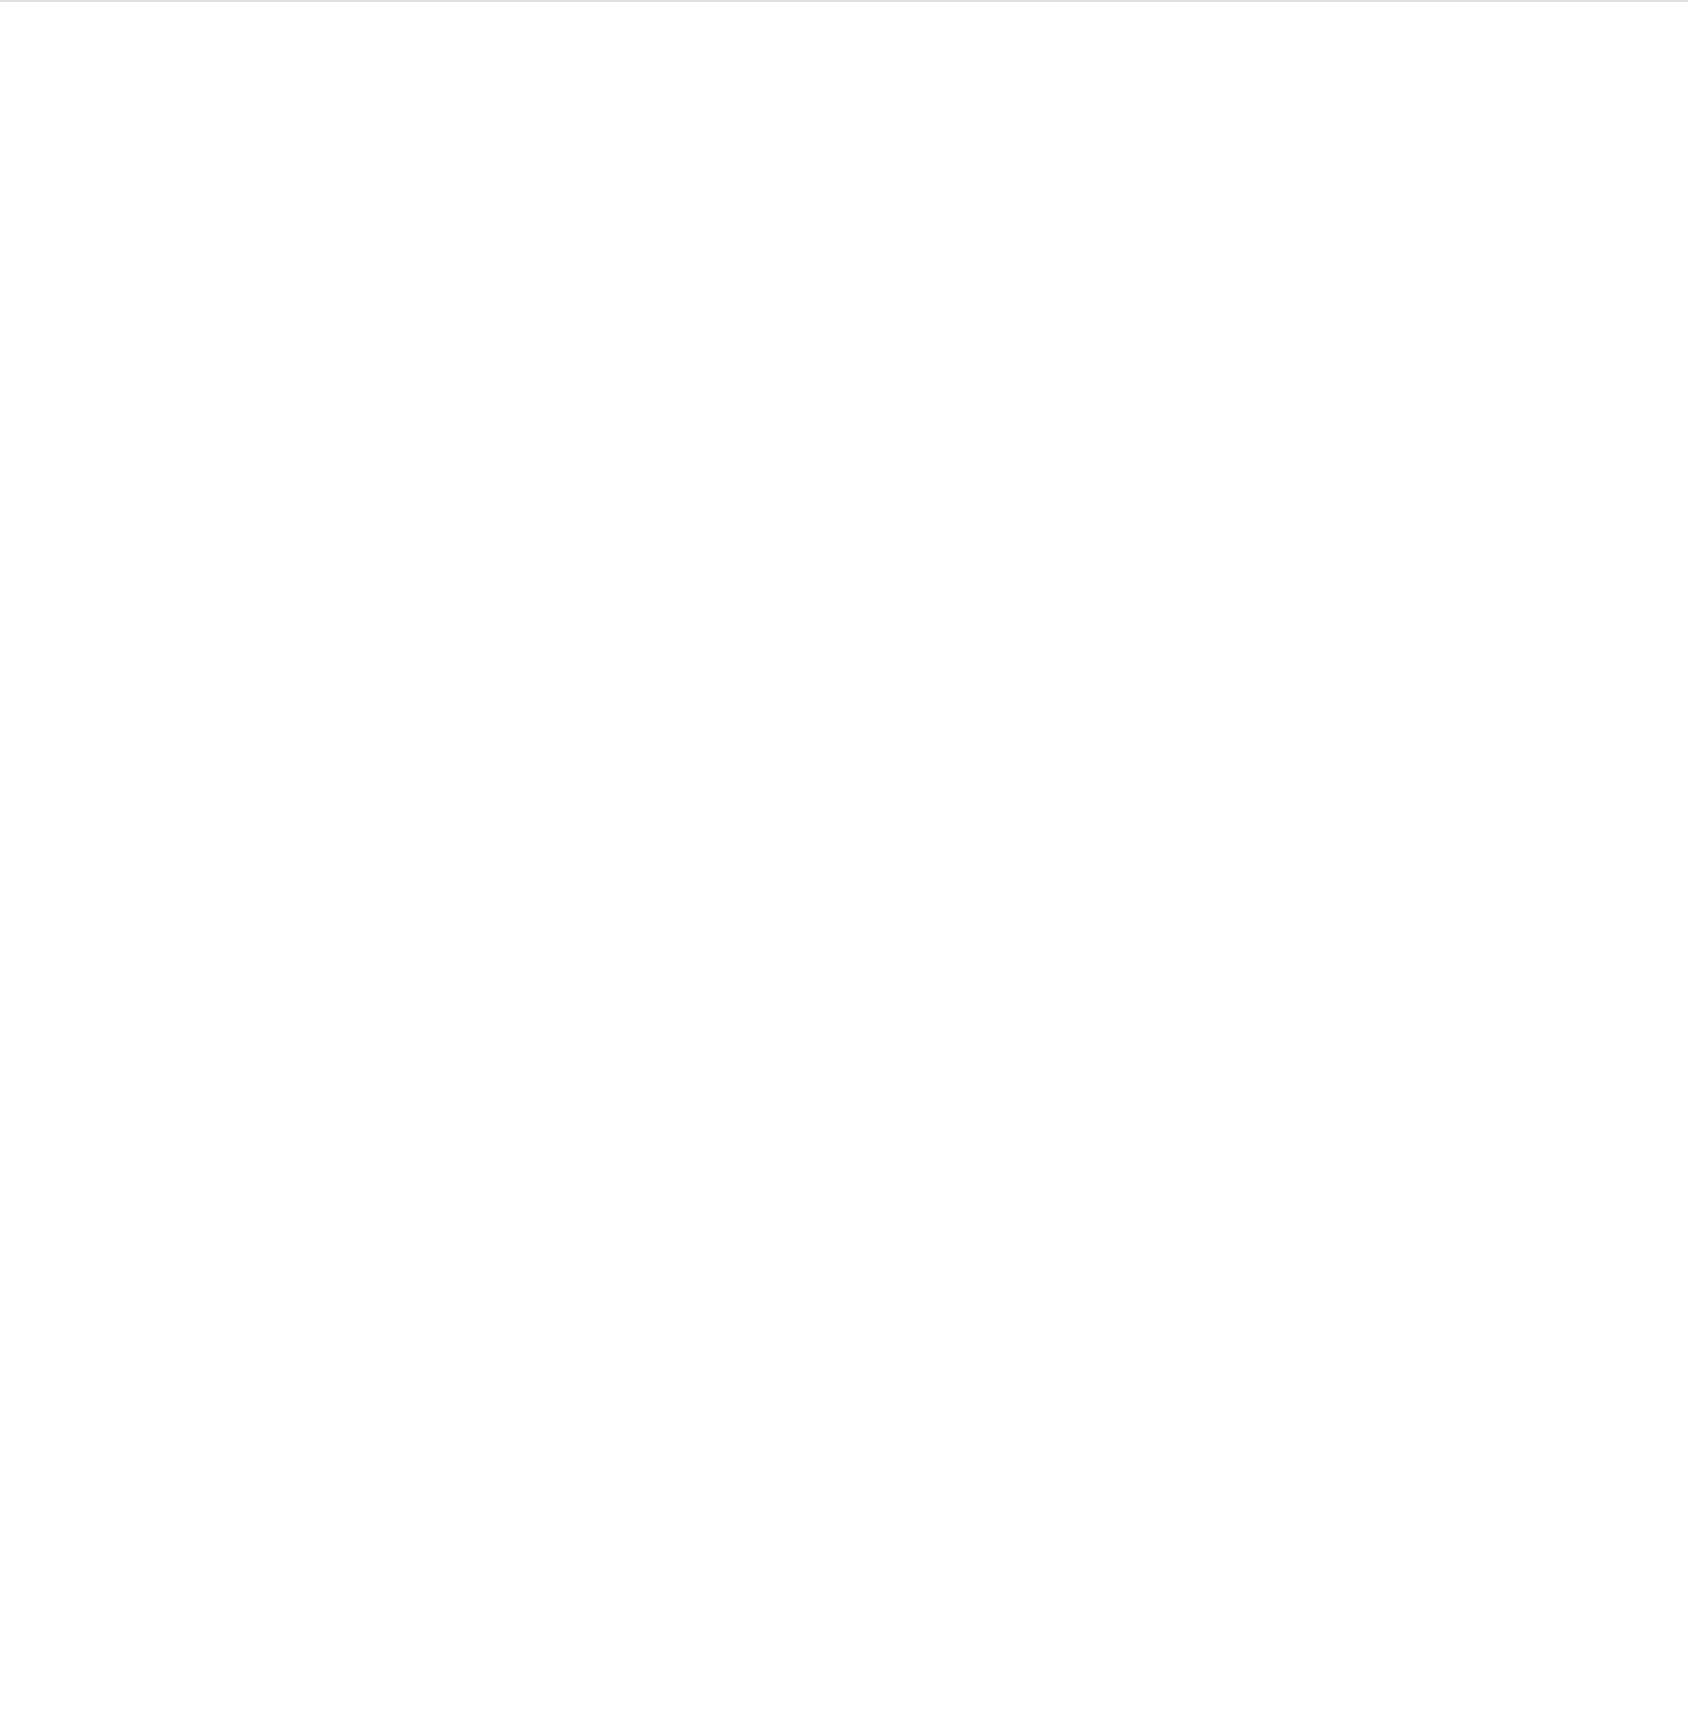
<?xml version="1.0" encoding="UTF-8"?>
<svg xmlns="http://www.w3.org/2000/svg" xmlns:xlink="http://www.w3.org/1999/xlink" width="1688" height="1718">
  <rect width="100%" height="100%" fill="#ffffff" />
  <rect width="1688" height="2" fill="#dee2e6" />
</svg>
